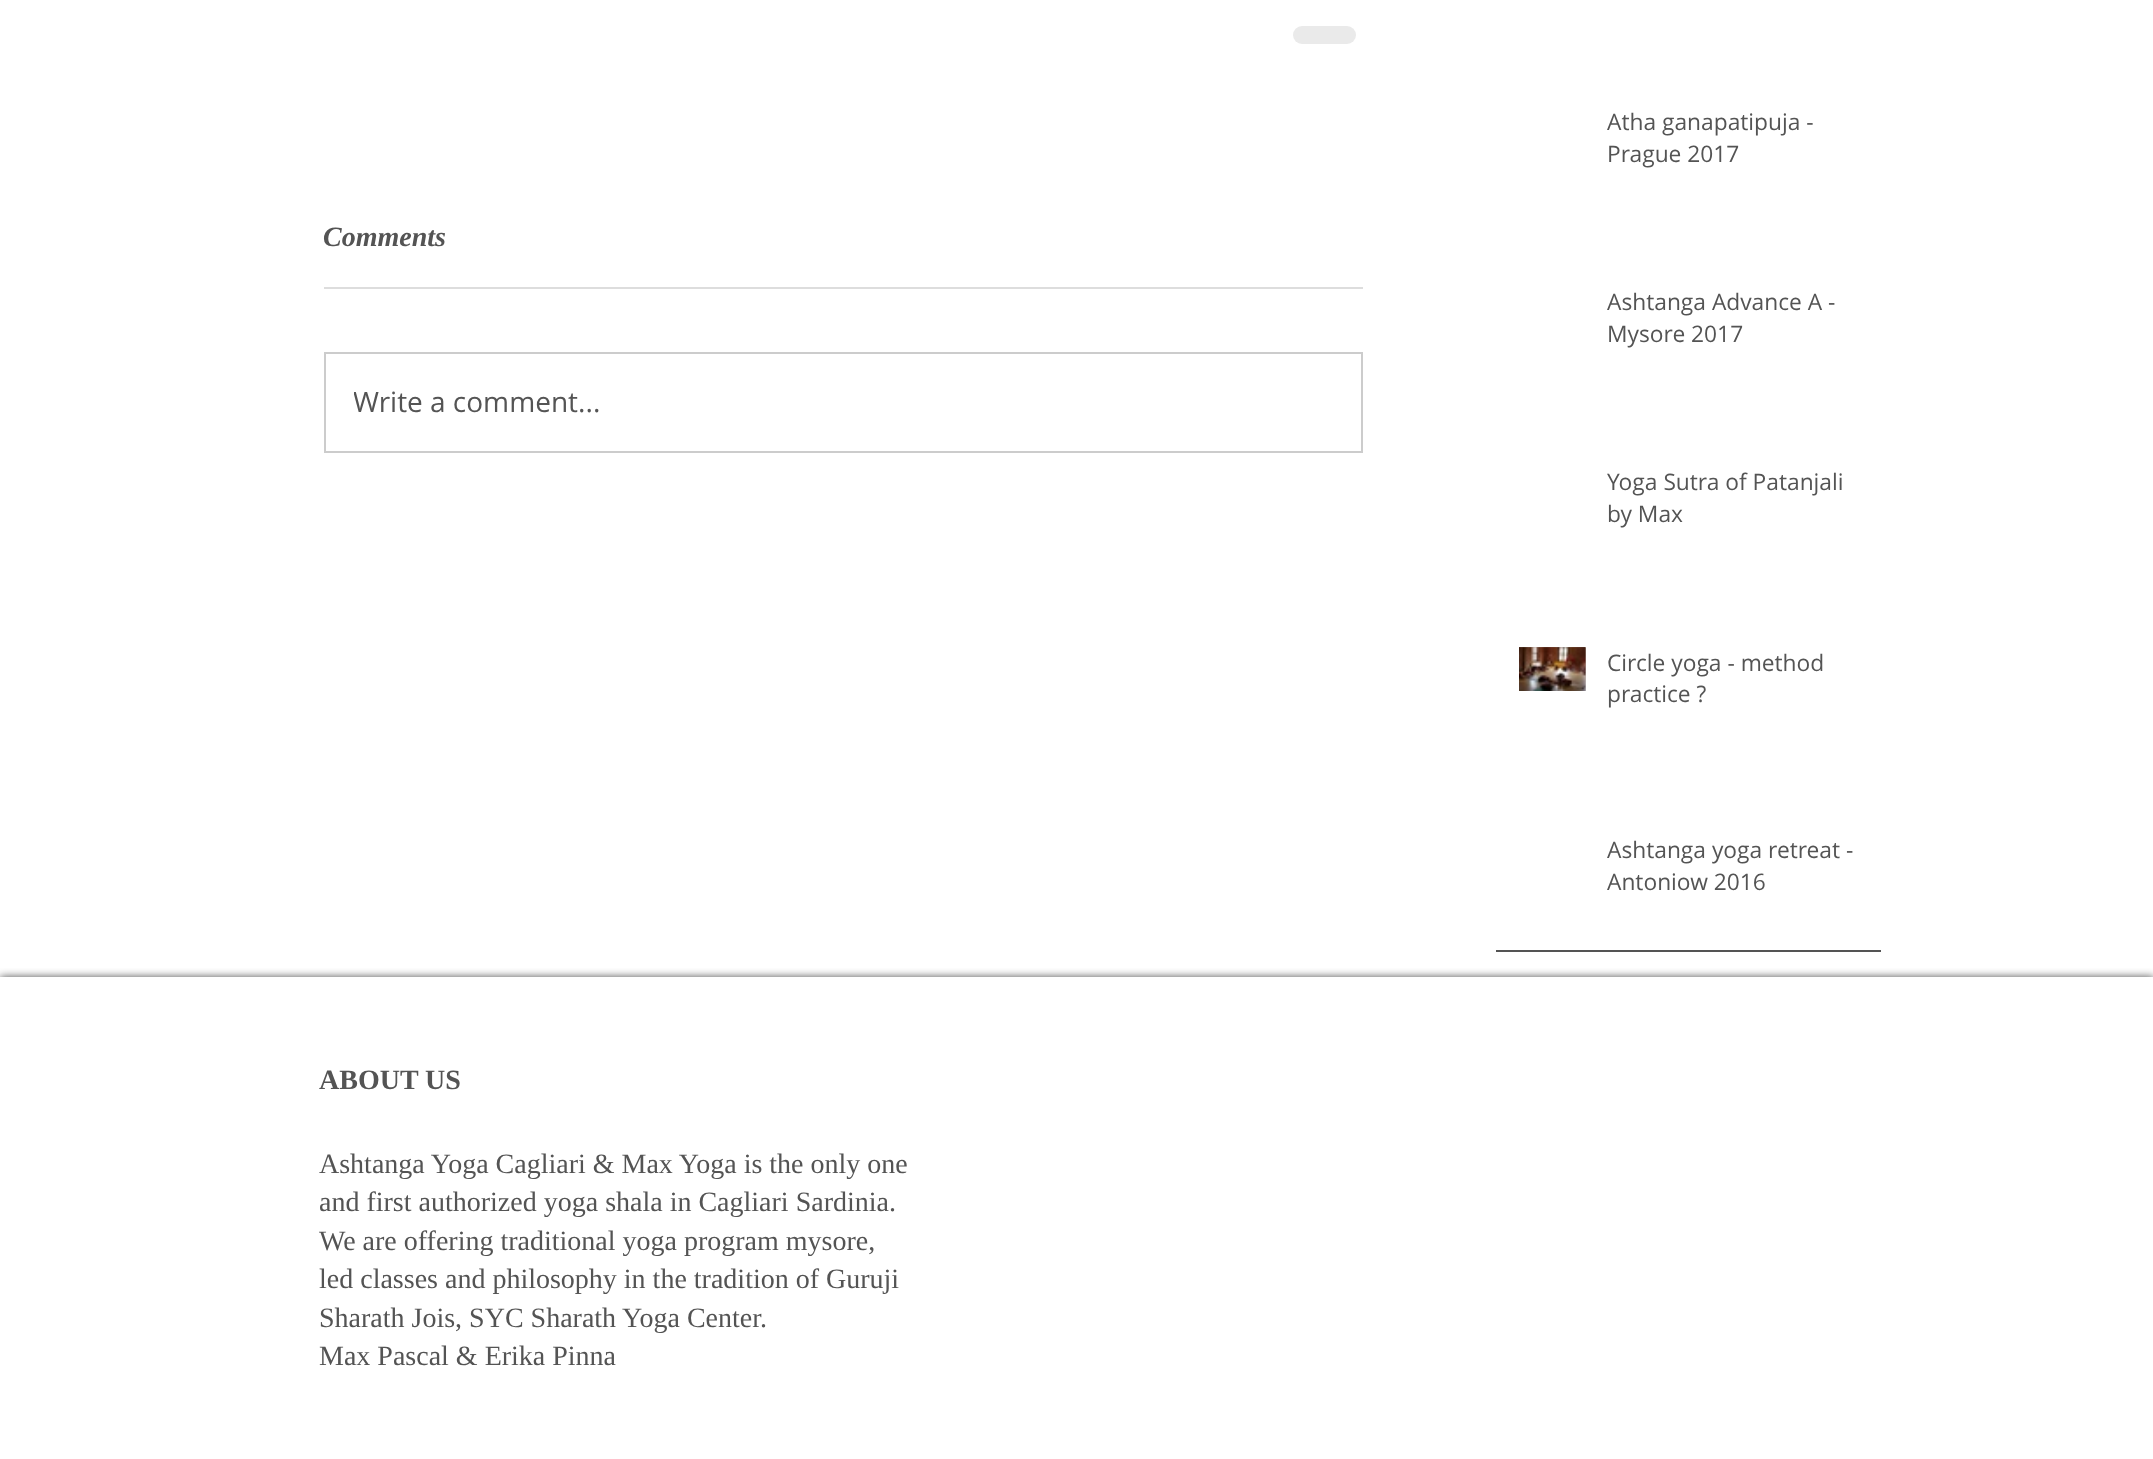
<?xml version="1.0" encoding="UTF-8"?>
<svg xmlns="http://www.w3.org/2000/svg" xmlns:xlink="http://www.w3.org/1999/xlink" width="2153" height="1459">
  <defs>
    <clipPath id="clip1"><rect x="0" y="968" width="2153" height="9" /></clipPath>
    <clipPath id="clip2"><rect x="354" y="382" width="980" height="42" /></clipPath>
  </defs>
  <rect width="100%" height="100%" fill="#ffffff" />
  <rect x="1293" y="26" width="63" height="18" rx="9" fill="#eaeaea" />
  <rect x="324" y="287" width="1039" height="2" fill="#dddddd" />
  <rect x="325" y="353" width="1037" height="99" fill="none" stroke="#cccccc" stroke-width="2" />
  <image x="1519" y="647" width="67" height="44" xlink:href="image1.png" />
  <image x="1519" y="647" width="67" height="44" xlink:href="image2.png" />
  <rect x="1496" y="950" width="385" height="2" fill="#545454" />
  <g clip-path="url(#clip1)">
    <rect y="977" width="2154" height="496" fill="#000000" fill-opacity="0.7" filter="blur(4.5px)" />
  </g>
  <text x="323" y="246" style="font-family: Liberation Serif; font-size: 28px; font-weight: bold; font-style: italic; fill: #545454">Comments</text>
  <g clip-path="url(#clip2)">
    <text x="353" y="412" style="font-family: Open Sans; font-size: 28px; fill: #545454">Write a comment...</text>
  </g>
  <text x="1607" y="130" style="font-family: Open Sans; font-size: 22.75px; fill: #545454">Atha ganapatipuja -</text>
  <text x="1607" y="162" style="font-family: Open Sans; font-size: 22.75px; fill: #545454">Prague 2017</text>
  <text x="1607" y="310" style="font-family: Open Sans; font-size: 22.75px; fill: #545454">Ashtanga Advance A -</text>
  <text x="1607" y="342" style="font-family: Open Sans; font-size: 22.75px; fill: #545454">Mysore 2017</text>
  <text x="1607" y="490" style="font-family: Open Sans; font-size: 22.75px; fill: #545454">Yoga Sutra of Patanjali</text>
  <text x="1607" y="522" style="font-family: Open Sans; font-size: 22.75px; fill: #545454">by Max</text>
  <text x="1607" y="671" style="font-family: Open Sans; font-size: 22.75px; fill: #545454">Circle yoga - method</text>
  <text x="1607" y="702" style="font-family: Open Sans; font-size: 22.75px; fill: #545454">practice ?</text>
  <text x="1607" y="858" style="font-family: Open Sans; font-size: 22.75px; fill: #545454">Ashtanga yoga retreat -</text>
  <text x="1607" y="890" style="font-family: Open Sans; font-size: 22.75px; fill: #545454">Antoniow 2016</text>
  <text x="319" y="1089" style="font-family: Liberation Serif; font-size: 28px; font-weight: bold; fill: #545454">ABOUT US</text>
  <text x="319" y="1173" style="font-family: Liberation Serif; font-size: 28px; fill: #545454">Ashtanga Yoga Cagliari &amp; Max Yoga is the only one</text>
  <text x="319" y="1211" style="font-family: Liberation Serif; font-size: 28px; fill: #545454">and first authorized yoga shala in Cagliari Sardinia.</text>
  <text x="319" y="1250" style="font-family: Liberation Serif; font-size: 28px; fill: #545454">We are offering traditional yoga program mysore,</text>
  <text x="319" y="1288" style="font-family: Liberation Serif; font-size: 28px; fill: #545454">led classes and philosophy in the tradition of Guruji</text>
  <text x="319" y="1327" style="font-family: Liberation Serif; font-size: 28px; fill: #545454">Sharath Jois, SYC Sharath Yoga Center.</text>
  <text x="319" y="1365" style="font-family: Liberation Serif; font-size: 28px; fill: #545454">Max Pascal &amp; Erika Pinna</text>
</svg>
